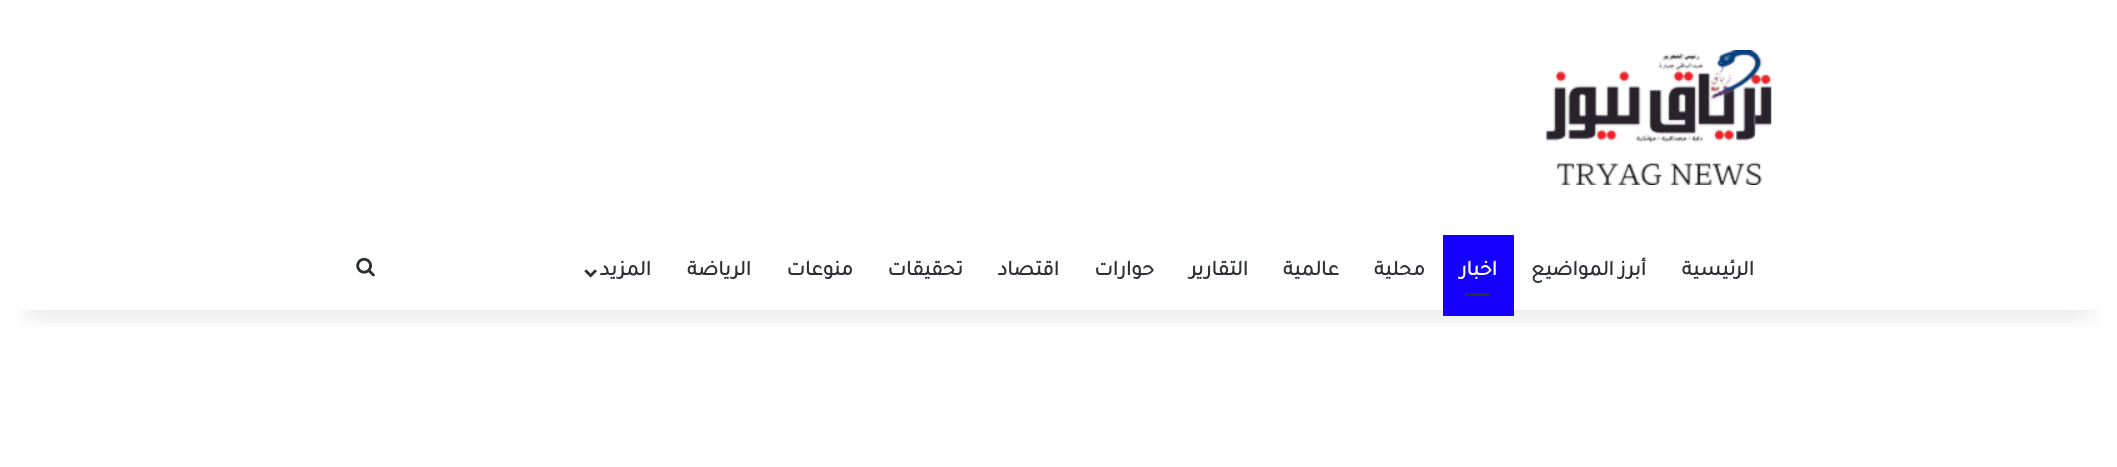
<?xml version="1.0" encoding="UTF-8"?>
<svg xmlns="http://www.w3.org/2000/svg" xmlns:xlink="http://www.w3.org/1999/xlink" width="2117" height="467">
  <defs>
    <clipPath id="clip1"><rect x="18" y="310" width="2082" height="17" /></clipPath>
  </defs>
  <rect width="100%" height="100%" fill="#ffffff" />
  <g clip-path="url(#clip1)">
    <rect x="25" y="56" width="2068" height="260" fill="#000000" fill-opacity="0.1" filter="blur(12.5px)" />
  </g>
  <image x="1546" y="50" width="226" height="135" xlink:href="image1.png" />
  <rect x="1443" y="235" width="71" height="81" fill="#1500ff" />
  <rect x="1465" y="293" width="25" height="3" fill="#2c2f34" />
  <image x="584" y="269" width="13" height="9" xlink:href="image2.png" />
  <image x="356" y="257" width="19" height="20" xlink:href="image3.png" />
  <text x="1754" y="275" style="font-family: Tajawal; font-size: 21.25px; font-weight: bold; direction: rtl; fill: #2c2f34">الرئيسية</text>
  <text x="1646" y="275" style="font-family: Tajawal; font-size: 21.25px; font-weight: bold; direction: rtl; fill: #2c2f34">أبرز المواضيع</text>
  <text x="1497" y="275" style="font-family: Tajawal; font-size: 21.25px; font-weight: bold; direction: rtl; fill: #ffffff">اخبار</text>
  <text x="1425" y="275" style="font-family: Tajawal; font-size: 21.25px; font-weight: bold; direction: rtl; fill: #2c2f34">محلية</text>
  <text x="1339" y="275" style="font-family: Tajawal; font-size: 21.25px; font-weight: bold; direction: rtl; fill: #2c2f34">عالمية</text>
  <text x="1248" y="275" style="font-family: Tajawal; font-size: 21.25px; font-weight: bold; direction: rtl; fill: #2c2f34">التقارير</text>
  <text x="1154" y="275" style="font-family: Tajawal; font-size: 21.25px; font-weight: bold; direction: rtl; fill: #2c2f34">حوارات</text>
  <text x="1059" y="275" style="font-family: Tajawal; font-size: 21.25px; font-weight: bold; direction: rtl; fill: #2c2f34">اقتصاد</text>
  <text x="963" y="275" style="font-family: Tajawal; font-size: 21.25px; font-weight: bold; direction: rtl; fill: #2c2f34">تحقيقات</text>
  <text x="853" y="275" style="font-family: Tajawal; font-size: 21.25px; font-weight: bold; direction: rtl; fill: #2c2f34">منوعات</text>
  <text x="751" y="275" style="font-family: Tajawal; font-size: 21.25px; font-weight: bold; direction: rtl; fill: #2c2f34">الرياضة</text>
  <text x="651" y="275" style="font-family: Tajawal; font-size: 21.25px; font-weight: bold; direction: rtl; fill: #2c2f34">المزيد</text>
</svg>
